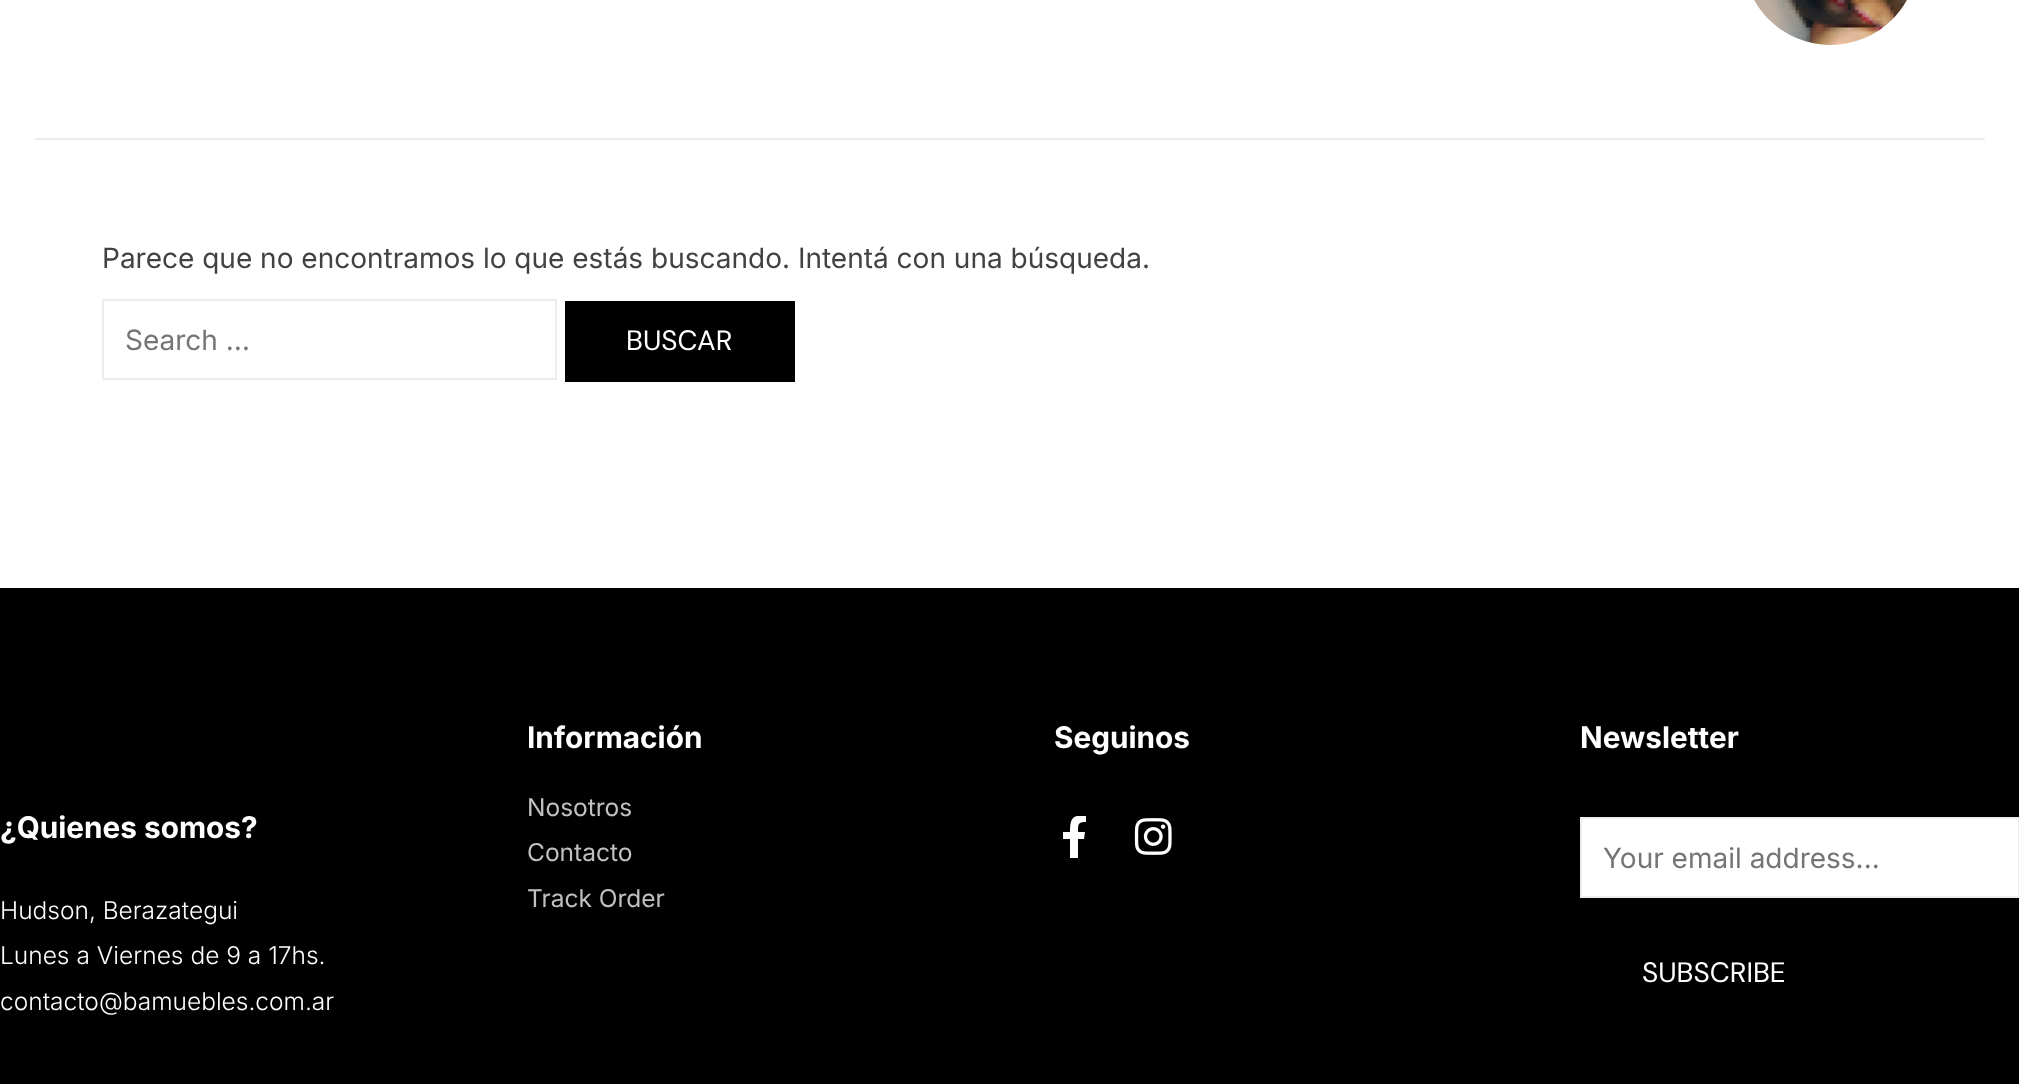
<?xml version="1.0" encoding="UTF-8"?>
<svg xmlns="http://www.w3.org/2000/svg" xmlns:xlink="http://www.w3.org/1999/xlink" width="2019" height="1084">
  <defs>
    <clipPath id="clip1"><rect x="1054" y="816" width="42" height="42" /></clipPath>
  </defs>
  <rect width="100%" height="100%" fill="#ffffff" />
  <rect x="35" y="138" width="1950" height="2" fill="#ededed" />
  <image x="1754" y="0" width="153" height="45" xlink:href="image1.png" />
  <rect x="103" y="300" width="453" height="79" fill="none" stroke="#ededed" stroke-width="2" />
  <rect x="565" y="301" width="230" height="81" fill="#000000" />
  <rect y="588" width="2019" height="496" fill="#000000" />
  <g clip-path="url(#clip1)">
    <path d="M 1084 839 l 1 -7 h -7 c 0 -8 0 -10 8 -10 v -6 c -14 -2 -16 3 -16 16 h -7 v 7 h 7 v 19 h 8 v -19 z" fill="#ffffff" />
  </g>
  <image x="1134" y="818" width="38" height="37" xlink:href="image2.png" />
  <rect x="1581" y="818" width="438" height="79" fill="#ffffff" stroke="#ededed" stroke-width="2" />
  <text x="102" y="268" style="font-family: Inter; font-size: 28px; fill: #424242">Parece que no encontramos lo que estás buscando. Intentá con una búsqueda.</text>
  <text x="125" y="350" style="font-family: Inter; font-size: 28px; fill: #757575">Search …</text>
  <text x="626" y="350" style="font-family: DM Sans; font-size: 28px; fill: #ffffff">BUSCAR</text>
  <text x="0" y="838" style="font-family: Inter; font-size: 29.75px; font-weight: bold; fill: #ffffff">¿Quienes somos?</text>
  <text x="0" y="919" style="font-family: Inter; font-size: 24.5px; font-weight: 300; fill: #ffffff">Hudson, Berazategui</text>
  <text x="0" y="964" style="font-family: Inter; font-size: 24.5px; font-weight: 300; fill: #ffffff">Lunes a Viernes de 9 a 17hs.</text>
  <text x="0" y="1010" style="font-family: Inter; font-size: 24.5px; font-weight: 300; fill: #ffffff">contacto@bamuebles.com.ar</text>
  <text x="527" y="748" style="font-family: Inter; font-size: 29.75px; font-weight: bold; fill: #ffffff">Información</text>
  <text x="527" y="816" style="font-family: Inter; font-size: 24.5px; fill: #c1c1c1">Nosotros</text>
  <text x="527" y="861" style="font-family: Inter; font-size: 24.5px; fill: #c1c1c1">Contacto</text>
  <text x="527" y="907" style="font-family: Inter; font-size: 24.5px; fill: #c1c1c1">Track Order</text>
  <text x="1054" y="748" style="font-family: Inter; font-size: 29.75px; font-weight: bold; fill: #ffffff">Seguinos</text>
  <text x="1580" y="748" style="font-family: Inter; font-size: 29.75px; font-weight: bold; fill: #ffffff">Newsletter</text>
  <text x="1603" y="868" style="font-family: Inter; font-size: 28px; fill: #757575">Your email address...</text>
  <text x="1642" y="982" style="font-family: DM Sans; font-size: 28px; fill: #ffffff">SUBSCRIBE</text>
</svg>
